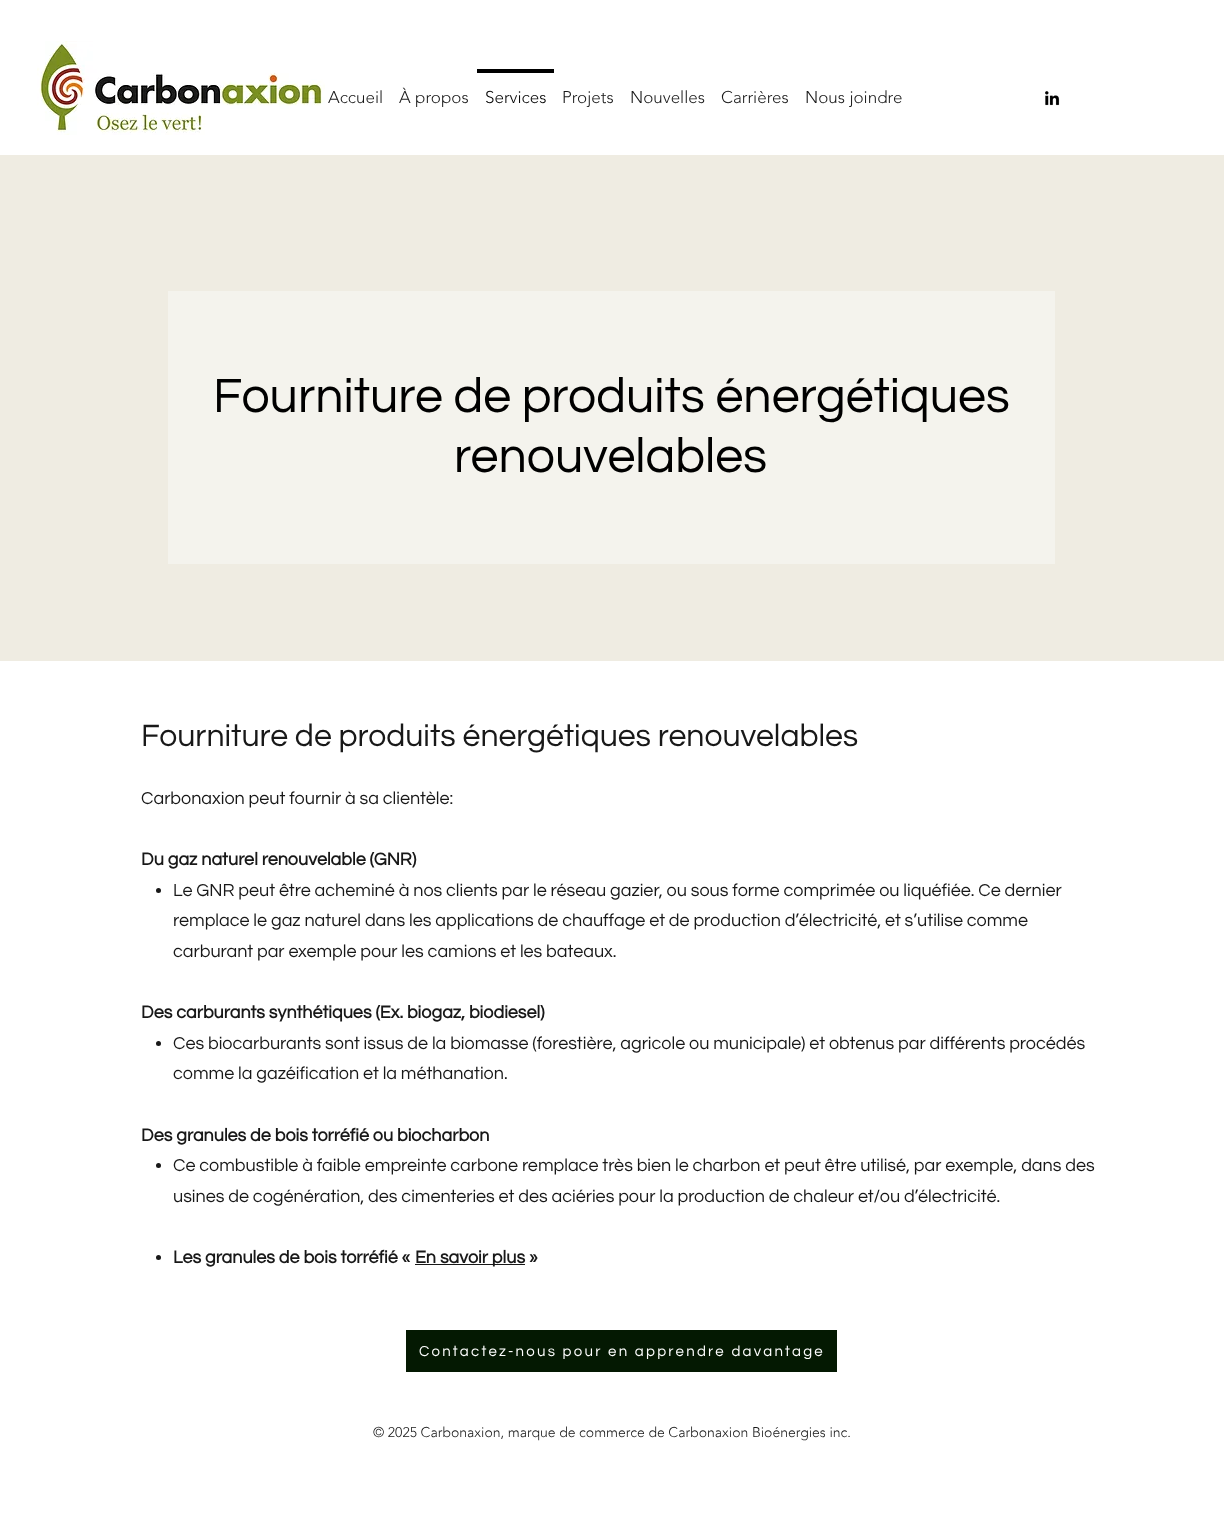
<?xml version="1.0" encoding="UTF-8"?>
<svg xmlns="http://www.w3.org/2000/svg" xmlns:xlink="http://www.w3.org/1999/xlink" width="1224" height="1532">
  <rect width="100%" height="100%" fill="#ffffff" />
  <image x="37" y="41" width="288" height="94" xlink:href="image1.png" />
  <image x="1045" y="91" width="15" height="15" xlink:href="image2.png" />
  <rect x="477" y="69" width="77" height="4" fill="#000000" />
  <rect y="155" width="1224" height="506" fill="#efece2" />
  <rect x="168" y="291" width="887" height="273" fill="#f4f3ed" />
  <circle cx="158.5" cy="890.5" r="2.5" fill="#181818" />
  <circle cx="158.5" cy="1043.5" r="2.5" fill="#181818" />
  <circle cx="158.5" cy="1165.5" r="2.5" fill="#181818" />
  <circle cx="158.5" cy="1257.5" r="2.5" fill="#181818" />
  <rect x="415" y="1264" width="110" height="1" fill="#181818" />
  <rect x="406" y="1330" width="431" height="42" fill="#041902" />
  <text x="328" y="103" style="font-family: 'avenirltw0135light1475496'; font-size: 17px; font-weight: 300; fill: #181818">Accueil</text>
  <text x="399" y="103" style="font-family: 'avenirltw0135light1475496'; font-size: 17px; font-weight: 300; fill: #181818">À propos</text>
  <text x="485" y="103" style="font-family: 'avenirltw0135light1475496'; font-size: 17px; font-weight: 300; fill: #000000">Services</text>
  <text x="562" y="103" style="font-family: 'avenirltw0135light1475496'; font-size: 17px; font-weight: 300; fill: #181818">Projets</text>
  <text x="630" y="103" style="font-family: 'avenirltw0135light1475496'; font-size: 17px; font-weight: 300; fill: #181818">Nouvelles</text>
  <text x="721" y="103" style="font-family: 'avenirltw0135light1475496'; font-size: 17px; font-weight: 300; fill: #181818">Carrières</text>
  <text x="805" y="103" style="font-family: 'avenirltw0135light1475496'; font-size: 17px; font-weight: 300; fill: #181818">Nous joindre</text>
  <text x="213" y="412" style="font-family: Questrial; font-size: 50px; fill: #000000">Fourniture de produits énergétiques</text>
  <text x="454" y="472" style="font-family: Questrial; font-size: 50px; fill: #000000">renouvelables</text>
  <text x="141" y="746" style="font-family: Questrial; font-size: 32px; fill: #181818">Fourniture de produits énergétiques renouvelables</text>
  <text x="141" y="804" style="font-family: Questrial; font-size: 18px; fill: #181818">Carbonaxion peut fournir à sa clientèle:</text>
  <text x="141" y="865" style="font-family: Questrial; font-size: 18px; font-weight: bold; fill: #181818">Du gaz naturel renouvelable (GNR)</text>
  <text x="173" y="896" style="font-family: Questrial; font-size: 18px; fill: #181818">Le GNR peut être acheminé à nos clients par le réseau gazier, ou sous forme comprimée ou liquéfiée. Ce dernier</text>
  <text x="173" y="926" style="font-family: Questrial; font-size: 18px; fill: #181818">remplace le gaz naturel dans les applications de chauffage et de production d’électricité, et s’utilise comme</text>
  <text x="173" y="957" style="font-family: Questrial; font-size: 18px; fill: #181818">carburant par exemple pour les camions et les bateaux.</text>
  <text x="141" y="1018" style="font-family: Questrial; font-size: 18px; font-weight: bold; fill: #181818">Des carburants synthétiques (Ex. biogaz, biodiesel)</text>
  <text x="173" y="1049" style="font-family: Questrial; font-size: 18px; fill: #181818">Ces biocarburants sont issus de la biomasse (forestière, agricole ou municipale) et obtenus par différents procédés</text>
  <text x="173" y="1079" style="font-family: Questrial; font-size: 18px; fill: #181818">comme la gazéification et la méthanation.</text>
  <text x="141" y="1141" style="font-family: Questrial; font-size: 18px; font-weight: bold; fill: #181818">Des granules de bois torréfié ou biocharbon</text>
  <text x="173" y="1171" style="font-family: Questrial; font-size: 18px; fill: #181818">Ce combustible à faible empreinte carbone remplace très bien le charbon et peut être utilisé, par exemple, dans des</text>
  <text x="173" y="1202" style="font-family: Questrial; font-size: 18px; fill: #181818">usines de cogénération, des cimenteries et des aciéries pour la production de chaleur et/ou d’électricité.</text>
  <text x="173" y="1263" style="font-family: Questrial; font-size: 18px; font-weight: bold; fill: #181818">Les granules de bois torréfié «</text>
  <text x="415" y="1263" style="font-family: Questrial; font-size: 18px; font-weight: bold; fill: #181818">En savoir plus »</text>
  <text x="419" y="1356" style="font-family: Questrial; font-size: 15px; letter-spacing: 2.25px; fill: #ffffff">Contactez-nous pour en apprendre davantage</text>
  <text x="373" y="1437" style="font-family: 'avenirltw0135light1475496'; font-size: 14px; font-weight: 300; fill: #181818">© 2025 Carbonaxion, marque de commerce de Carbonaxion Bioénergies inc.</text>
</svg>
